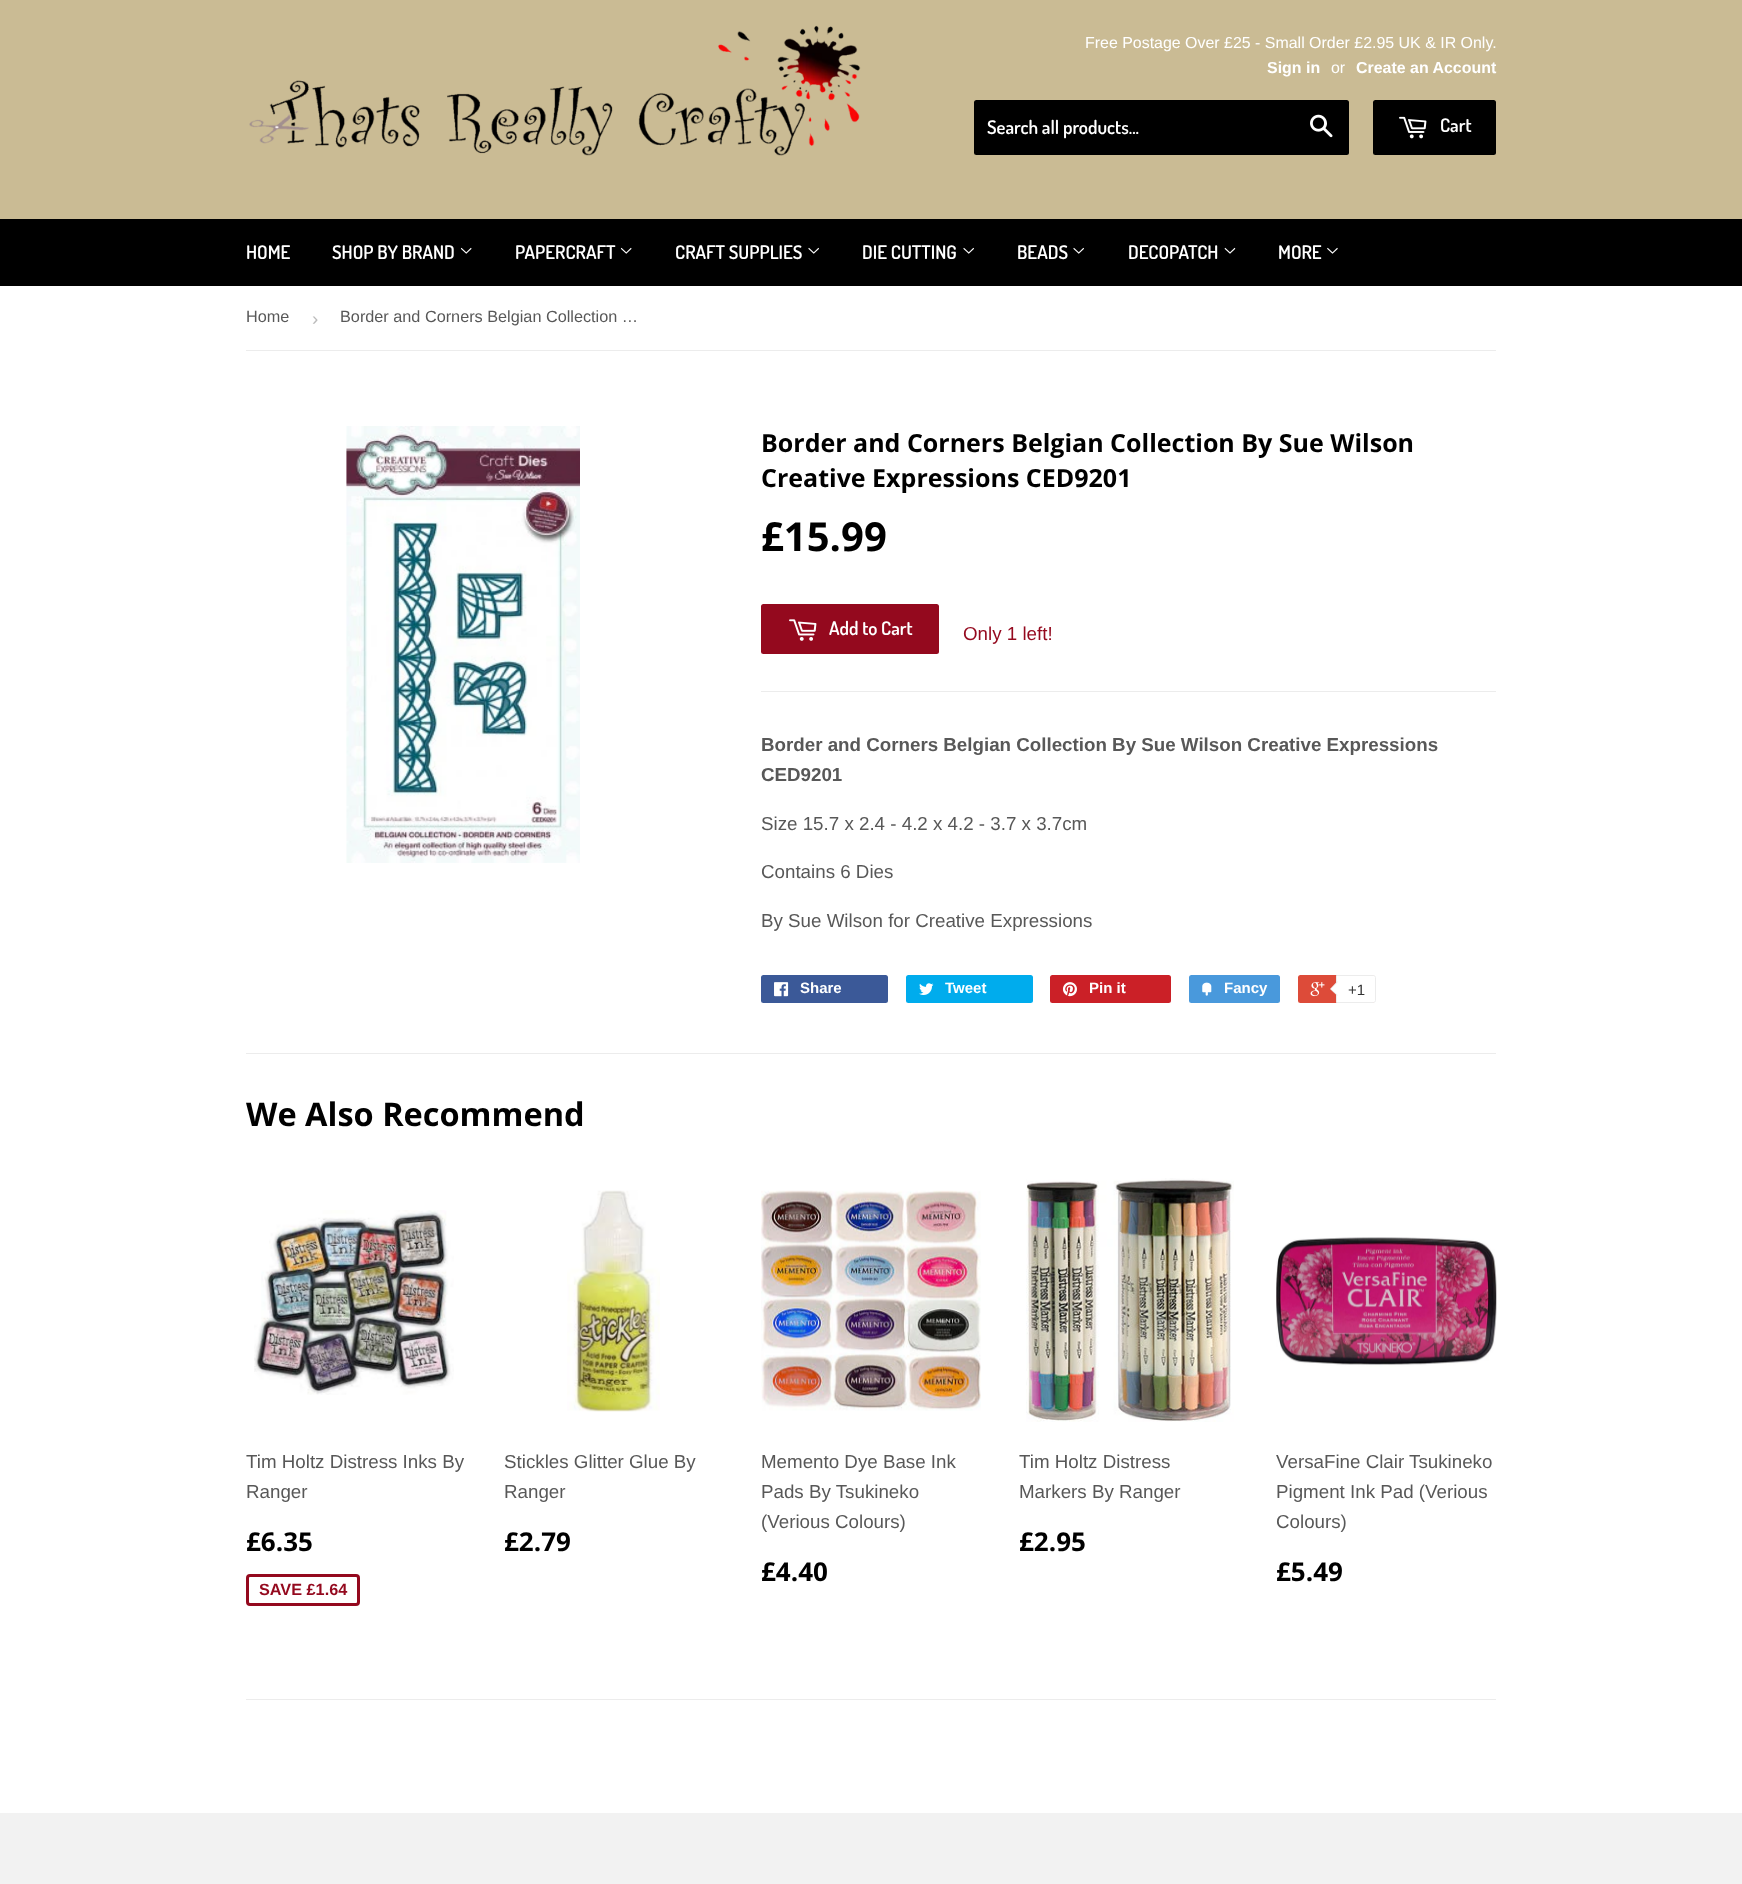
<?xml version="1.0" encoding="UTF-8"?>
<svg xmlns="http://www.w3.org/2000/svg" xmlns:xlink="http://www.w3.org/1999/xlink" width="1742" height="1884">
  <rect width="100%" height="100%" fill="#ffffff" />
  <rect width="1742" height="219" fill="#cabb94" />
  <image x="249" y="25" width="612" height="131" xlink:href="image1.png" />
  <rect x="974" y="100" width="375" height="55" rx="2.5" fill="#000000" />
  <image x="1310" y="114" width="23" height="24" xlink:href="image2.png" />
  <rect x="1373" y="100" width="123" height="55" rx="2.5" fill="#000000" />
  <image x="1399" y="116" width="28" height="23" xlink:href="image3.png" />
  <rect y="219" width="1742" height="67" fill="#000000" />
  <image x="460" y="247" width="12" height="7" xlink:href="image4.png" />
  <image x="620" y="247" width="12" height="7" xlink:href="image4.png" />
  <image x="808" y="247" width="11" height="7" xlink:href="image5.png" />
  <image x="963" y="247" width="11" height="7" xlink:href="image5.png" />
  <image x="1073" y="247" width="11" height="7" xlink:href="image5.png" />
  <image x="1224" y="247" width="12" height="7" xlink:href="image6.png" />
  <image x="1327" y="247" width="11" height="7" xlink:href="image7.png" />
  <rect x="246" y="350" width="1250" height="1" fill="#ececec" />
  <image x="346" y="426" width="234" height="437" xlink:href="image8.png" />
  <rect x="761" y="604" width="178" height="50" rx="2.5" fill="#94091e" />
  <image x="789" y="619" width="28" height="22" xlink:href="image9.png" />
  <rect x="761" y="691" width="735" height="1" fill="#ececec" />
  <rect x="761" y="975" width="127" height="28" rx="2.5" fill="#3b5998" />
  <image x="774" y="982" width="15" height="15" xlink:href="image10.png" />
  <rect x="906" y="975" width="127" height="28" rx="2.5" fill="#00aced" />
  <image x="919" y="983" width="15" height="12" xlink:href="image11.png" />
  <rect x="1050" y="975" width="121" height="28" rx="2.5" fill="#cb2027" />
  <image x="1062" y="982" width="15" height="15" xlink:href="image12.png" />
  <rect x="1189" y="975" width="91" height="28" rx="2.5" fill="#4999dc" />
  <image x="1202" y="982" width="10" height="14" xlink:href="image13.png" />
  <rect x="1298" y="975" width="76" height="28" rx="2.5" fill="#dd4b39" />
  <image x="1310" y="982" width="15" height="15" xlink:href="image14.png" />
  <path d="M 1336.5 975.5 h 37 c 1 0 2 1 2 2 v 23 c 0 1 -1 2 -2 2 h -37 z" fill="#ffffff" stroke="#ececec" />
  <path d="M 1337.5 981 v 15 l -7.5 -7 z" fill="#ececec" />
  <path d="M 1339 981 v 15 l -8 -7 z" fill="#ffffff" />
  <rect x="246" y="1053" width="1250" height="1" fill="#ececec" />
  <image x="254" y="1210" width="200" height="185" xlink:href="image15.png" />
  <rect x="247.5" y="1575.5" width="111" height="29" rx="2.5" fill="none" stroke="#94091e" stroke-width="3" />
  <image x="567" y="1190" width="93" height="222" xlink:href="image16.png" />
  <image x="761" y="1190" width="220" height="221" xlink:href="image17.png" />
  <image x="1026" y="1178" width="208" height="244" xlink:href="image18.png" />
  <image x="1276" y="1237" width="221" height="130" xlink:href="image19.png" />
  <rect x="246" y="1699" width="1250" height="1" fill="#ececec" />
  <rect y="1813" width="1742" height="71" fill="#f2f2f2" />
  <text x="1085" y="48" style="font-family: Liberation Sans; font-size: 15.95px; fill: #ffffff">Free Postage Over £25 - Small Order £2.95 UK &amp; IR Only.</text>
  <text x="1267" y="73" style="font-family: Liberation Sans; font-size: 15.95px; font-weight: bold; fill: #ffffff">Sign in</text>
  <text x="1331" y="73" style="font-family: Liberation Sans; font-size: 15.95px; fill: #ffffff">or</text>
  <text x="1356" y="73" style="font-family: Liberation Sans; font-size: 15.95px; font-weight: bold; fill: #ffffff">Create an Account</text>
  <text x="987" y="134" style="font-family: Dosis; font-size: 18.75px; font-weight: 600; fill: #ffffff">Search all products...</text>
  <text x="1440" y="132" style="font-family: Dosis; font-size: 18.75px; font-weight: 600; fill: #ffffff">Cart</text>
  <text x="246" y="259" style="font-family: Dosis; font-size: 18.75px; font-weight: 600; fill: #ffffff">HOME</text>
  <text x="332" y="259" style="font-family: Dosis; font-size: 18.75px; font-weight: 600; fill: #ffffff">SHOP BY BRAND</text>
  <text x="515" y="259" style="font-family: Dosis; font-size: 18.75px; font-weight: 600; fill: #ffffff">PAPERCRAFT</text>
  <text x="675" y="259" style="font-family: Dosis; font-size: 18.75px; font-weight: 600; fill: #ffffff">CRAFT SUPPLIES</text>
  <text x="862" y="259" style="font-family: Dosis; font-size: 18.75px; font-weight: 600; fill: #ffffff">DIE CUTTING</text>
  <text x="1017" y="259" style="font-family: Dosis; font-size: 18.75px; font-weight: 600; fill: #ffffff">BEADS</text>
  <text x="1128" y="259" style="font-family: Dosis; font-size: 18.75px; font-weight: 600; fill: #ffffff">DECOPATCH</text>
  <text x="1278" y="259" style="font-family: Dosis; font-size: 18.75px; font-weight: 600; fill: #ffffff">MORE</text>
  <text x="246" y="322" style="font-family: Liberation Sans; font-size: 16.25px; fill: #585858">Home</text>
  <text x="312" y="325" style="font-family: Liberation Sans; font-size: 18.75px; fill: #bbbbbb">›</text>
  <text x="340" y="322" style="font-family: Liberation Sans; font-size: 16.25px; fill: #585858">Border and Corners Belgian Collection …</text>
  <text x="761" y="452" style="font-family: Open Sans; font-size: 25px; font-weight: bold; fill: #000000">Border and Corners Belgian Collection By Sue Wilson</text>
  <text x="761" y="487" style="font-family: Open Sans; font-size: 25px; font-weight: bold; fill: #000000">Creative Expressions CED9201</text>
  <text x="761" y="551" style="font-family: Open Sans; font-size: 40px; font-weight: bold; fill: #000000">£15.99</text>
  <text x="829" y="635" style="font-family: Dosis; font-size: 18.75px; font-weight: 600; fill: #ffffff">Add to Cart</text>
  <text x="963" y="640" style="font-family: Liberation Sans; font-size: 18.75px; fill: #94091e">Only 1 left!</text>
  <text x="761" y="751" style="font-family: Liberation Sans; font-size: 18.75px; font-weight: bold; fill: #585858">Border and Corners Belgian Collection By Sue Wilson Creative Expressions</text>
  <text x="761" y="781" style="font-family: Liberation Sans; font-size: 18.75px; font-weight: bold; fill: #585858">CED9201</text>
  <text x="761" y="830" style="font-family: Liberation Sans; font-size: 18.75px; fill: #585858">Size 15.7 x 2.4 - 4.2 x 4.2 - 3.7 x 3.7cm</text>
  <text x="761" y="878" style="font-family: Liberation Sans; font-size: 18.75px; fill: #585858">Contains 6 Dies</text>
  <text x="761" y="927" style="font-family: Liberation Sans; font-size: 18.75px; fill: #585858">By Sue Wilson for Creative Expressions</text>
  <text x="800" y="993" style="font-family: Liberation Sans; font-size: 15px; font-weight: bold; fill: #ffffff">Share</text>
  <text x="945" y="993" style="font-family: Liberation Sans; font-size: 15px; font-weight: bold; fill: #ffffff">Tweet</text>
  <text x="1089" y="993" style="font-family: Liberation Sans; font-size: 15px; font-weight: bold; fill: #ffffff">Pin it</text>
  <text x="1224" y="993" style="font-family: Liberation Sans; font-size: 15px; font-weight: bold; fill: #ffffff">Fancy</text>
  <text x="1348" y="995" style="font-family: Liberation Sans; font-size: 15px; fill: #333333">+1</text>
  <text x="246" y="1126" style="font-family: Open Sans; font-size: 32.5px; font-weight: bold; fill: #000000">We Also Recommend</text>
  <text x="246" y="1468" style="font-family: Liberation Sans; font-size: 18.75px; fill: #585858">Tim Holtz Distress Inks By</text>
  <text x="246" y="1498" style="font-family: Liberation Sans; font-size: 18.75px; fill: #585858">Ranger</text>
  <text x="246" y="1551" style="font-family: Open Sans; font-size: 26px; font-weight: bold; fill: #000000">£6.35</text>
  <text x="259" y="1595" style="font-family: Liberation Sans; font-size: 16.25px; font-weight: bold; fill: #94091e">SAVE £1.64</text>
  <text x="504" y="1468" style="font-family: Liberation Sans; font-size: 18.75px; fill: #585858">Stickles Glitter Glue By</text>
  <text x="504" y="1498" style="font-family: Liberation Sans; font-size: 18.75px; fill: #585858">Ranger</text>
  <text x="504" y="1551" style="font-family: Open Sans; font-size: 26px; font-weight: bold; fill: #000000">£2.79</text>
  <text x="761" y="1468" style="font-family: Liberation Sans; font-size: 18.75px; fill: #585858">Memento Dye Base Ink</text>
  <text x="761" y="1498" style="font-family: Liberation Sans; font-size: 18.75px; fill: #585858">Pads By Tsukineko</text>
  <text x="761" y="1528" style="font-family: Liberation Sans; font-size: 18.75px; fill: #585858">(Verious Colours)</text>
  <text x="761" y="1581" style="font-family: Open Sans; font-size: 26px; font-weight: bold; fill: #000000">£4.40</text>
  <text x="1019" y="1468" style="font-family: Liberation Sans; font-size: 18.75px; fill: #585858">Tim Holtz Distress</text>
  <text x="1019" y="1498" style="font-family: Liberation Sans; font-size: 18.75px; fill: #585858">Markers By Ranger</text>
  <text x="1019" y="1551" style="font-family: Open Sans; font-size: 26px; font-weight: bold; fill: #000000">£2.95</text>
  <text x="1276" y="1468" style="font-family: Liberation Sans; font-size: 18.75px; fill: #585858">VersaFine Clair Tsukineko</text>
  <text x="1276" y="1498" style="font-family: Liberation Sans; font-size: 18.75px; fill: #585858">Pigment Ink Pad (Verious</text>
  <text x="1276" y="1528" style="font-family: Liberation Sans; font-size: 18.75px; fill: #585858">Colours)</text>
  <text x="1276" y="1581" style="font-family: Open Sans; font-size: 26px; font-weight: bold; fill: #000000">£5.49</text>
</svg>
